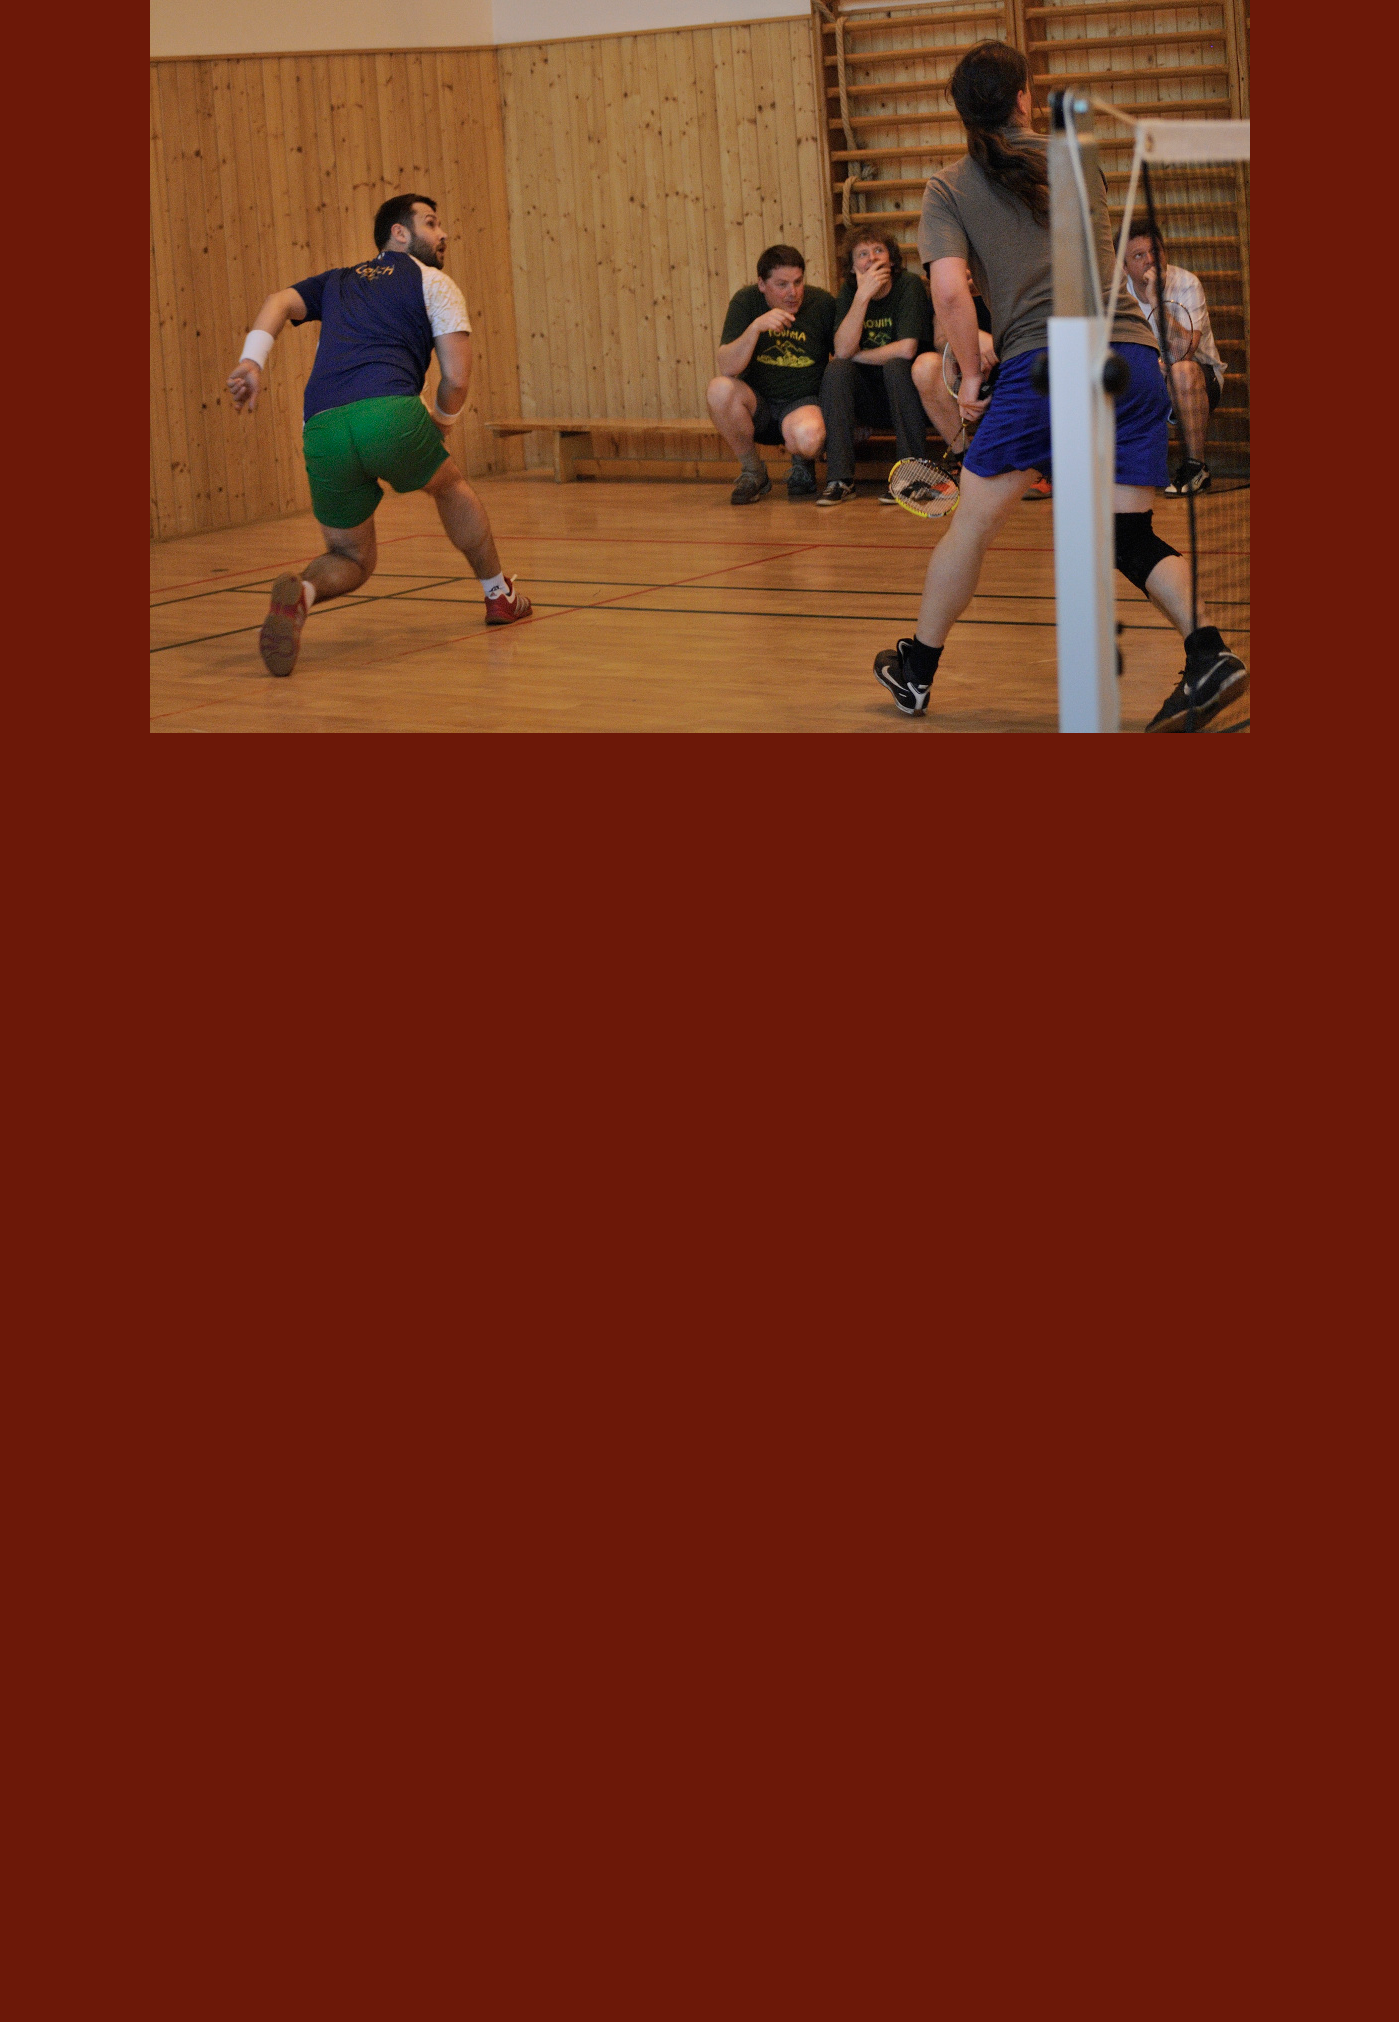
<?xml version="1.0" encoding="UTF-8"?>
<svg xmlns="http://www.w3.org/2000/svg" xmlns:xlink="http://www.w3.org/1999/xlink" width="1399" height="2022">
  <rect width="100%" height="100%" fill="#6c1808" />
  <image x="150" y="0" width="1100" height="733" xlink:href="image1.png" />
</svg>
